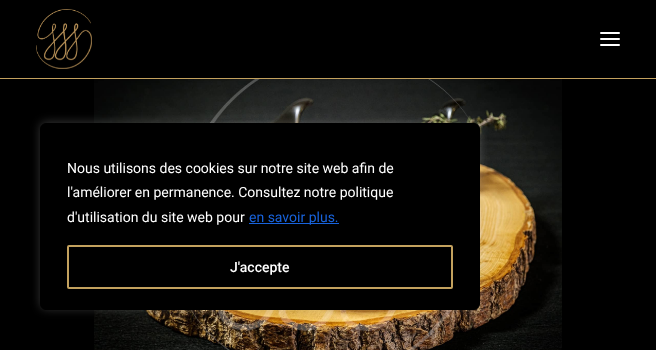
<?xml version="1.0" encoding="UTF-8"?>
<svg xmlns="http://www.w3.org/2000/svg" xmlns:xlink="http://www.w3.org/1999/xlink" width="656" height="350">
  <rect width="100%" height="100%" fill="#000000" />
  <rect y="78" width="656" height="1" fill="#c3a15e" />
  <image x="36" y="9" width="56" height="60" xlink:href="image1.png" />
  <rect x="600" y="38" width="20" height="2" rx="1" fill="#ffffff" />
  <rect x="600" y="32" width="20" height="2" rx="1" fill="#ffffff" />
  <rect x="600" y="44" width="20" height="2" rx="1" fill="#ffffff" />
  <image x="94" y="79" width="468" height="271" xlink:href="image2.png" />
  <rect x="40" y="122" width="440" height="187" rx="6" fill="#acabab" fill-opacity="0.3" filter="blur(5px)" />
  <rect x="40.5" y="123.5" width="439" height="186" rx="5.5" fill="#000000" stroke="#000000" />
  <rect x="249" y="223" width="90" height="1" fill="#1863dc" />
  <rect x="68" y="246" width="384" height="42" rx="1" fill="none" stroke="#c3a15e" stroke-width="2" />
  <text x="67" y="173" style="font-family: Roboto; font-size: 14px; fill: #ffffff">Nous utilisons des cookies sur notre site web afin de</text>
  <text x="67" y="197" style="font-family: Roboto; font-size: 14px; fill: #ffffff">l'améliorer en permanence. Consultez notre politique</text>
  <text x="67" y="222" style="font-family: Roboto; font-size: 14px; fill: #ffffff">d'utilisation du site web pour</text>
  <text x="249" y="222" style="font-family: Roboto; font-size: 14px; fill: #1863dc">en savoir plus.</text>
  <text x="230" y="272" style="font-family: Roboto; font-size: 14px; font-weight: 500; fill: #ffffff">J'accepte</text>
</svg>
